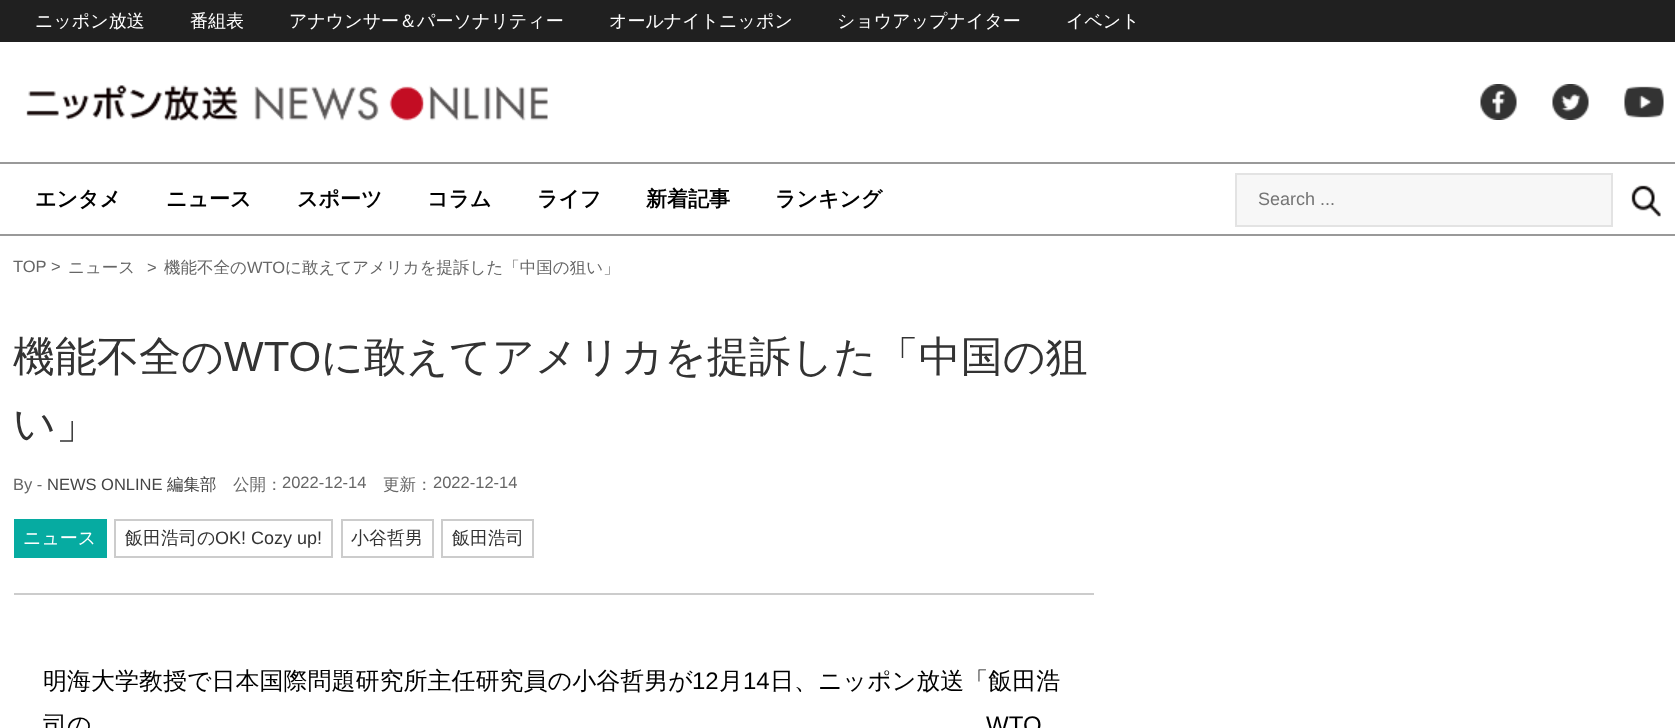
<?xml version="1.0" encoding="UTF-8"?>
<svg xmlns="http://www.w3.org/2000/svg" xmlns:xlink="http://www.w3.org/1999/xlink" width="1675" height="728">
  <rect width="100%" height="100%" fill="#ffffff" />
  <rect width="1675" height="42" fill="#202020" />
  <image x="26" y="85" width="522" height="36" xlink:href="image1.png" />
  <image x="1480" y="84" width="37" height="36" xlink:href="image2.png" />
  <image x="1552" y="84" width="37" height="36" xlink:href="image3.png" />
  <image x="1624" y="86" width="40" height="32" xlink:href="image4.png" />
  <rect y="162" width="1675" height="2" fill="#999999" />
  <rect y="234" width="1675" height="2" fill="#999999" />
  <rect x="1236" y="174" width="376" height="52" fill="#f7f7f7" stroke="#e3e3e3" stroke-width="2" />
  <image x="1631" y="185" width="30" height="32" xlink:href="image5.png" />
  <rect x="14" y="593" width="1080" height="2" fill="#cccccc" />
  <rect x="14" y="519" width="93" height="39" fill="#06aba1" />
  <rect x="115" y="520" width="217" height="37" fill="none" stroke="#cccccc" stroke-width="2" />
  <rect x="342" y="520" width="91" height="37" fill="none" stroke="#cccccc" stroke-width="2" />
  <rect x="442" y="520" width="91" height="37" fill="none" stroke="#cccccc" stroke-width="2" />
  <text x="35" y="27" style="font-family: WenQuanYi Zen Hei; font-size: 18px; font-weight: 500; fill: #ffffff">ニッポン放送</text>
  <text x="190" y="27" style="font-family: WenQuanYi Zen Hei; font-size: 18px; font-weight: 500; fill: #ffffff">番組表</text>
  <text x="289" y="27" style="font-family: WenQuanYi Zen Hei; font-size: 18px; font-weight: 500; fill: #ffffff">アナウンサー＆パーソナリティー</text>
  <text x="609" y="27" style="font-family: WenQuanYi Zen Hei; font-size: 18px; font-weight: 500; fill: #ffffff">オールナイトニッポン</text>
  <text x="837" y="27" style="font-family: WenQuanYi Zen Hei; font-size: 18px; font-weight: 500; fill: #ffffff">ショウアップナイター</text>
  <text x="1066" y="27" style="font-family: WenQuanYi Zen Hei; font-size: 18px; font-weight: 500; fill: #ffffff">イベント</text>
  <text x="35" y="206" style="font-family: WenQuanYi Zen Hei; font-size: 21px; font-weight: bold; fill: #000000">エンタメ</text>
  <text x="166" y="206" style="font-family: WenQuanYi Zen Hei; font-size: 21px; font-weight: bold; fill: #000000">ニュース</text>
  <text x="297" y="206" style="font-family: WenQuanYi Zen Hei; font-size: 21px; font-weight: bold; fill: #000000">スポーツ</text>
  <text x="427" y="206" style="font-family: WenQuanYi Zen Hei; font-size: 21px; font-weight: bold; fill: #000000">コラム</text>
  <text x="537" y="206" style="font-family: WenQuanYi Zen Hei; font-size: 21px; font-weight: bold; fill: #000000">ライフ</text>
  <text x="646" y="206" style="font-family: WenQuanYi Zen Hei; font-size: 21px; font-weight: bold; fill: #000000">新着記事</text>
  <text x="775" y="206" style="font-family: WenQuanYi Zen Hei; font-size: 21px; font-weight: bold; fill: #000000">ランキング</text>
  <text x="1258" y="205" style="font-family: Liberation Sans; font-size: 18px; fill: #757575">Search ...</text>
  <text x="13" y="272" style="font-family: Liberation Sans; font-size: 16.5px; fill: #666666">TOP &gt;</text>
  <text x="68" y="273" style="font-family: WenQuanYi Zen Hei; font-size: 16.5px; font-weight: 500; fill: #666666">ニュース</text>
  <text x="147" y="273" style="font-family: Liberation Sans; font-size: 16.5px; fill: #666666">&gt;</text>
  <text x="164" y="273" style="font-family: WenQuanYi Zen Hei; font-size: 16.5px; font-weight: 500; fill: #666666">機能不全の</text>
  <text x="247" y="273" style="font-family: Liberation Sans; font-size: 16.5px; fill: #666666">WTO</text>
  <text x="285" y="273" style="font-family: WenQuanYi Zen Hei; font-size: 16.5px; font-weight: 500; fill: #666666">に敢えてアメリカを提訴した「中国の狙い」</text>
  <text x="13" y="371" style="font-family: WenQuanYi Zen Hei; font-size: 42px; font-weight: 500; fill: #333333">機能不全の</text>
  <text x="224" y="371" style="font-family: Liberation Sans; font-size: 42px; fill: #333333">WTO</text>
  <text x="321" y="371" style="font-family: WenQuanYi Zen Hei; font-size: 42px; font-weight: 500; fill: #333333">に敢えてアメリカを提訴した「中国の狙</text>
  <text x="13" y="438" style="font-family: WenQuanYi Zen Hei; font-size: 42px; font-weight: 500; fill: #333333">い」</text>
  <text x="13" y="490" style="font-family: Liberation Sans; font-size: 16.5px; fill: #666666">By -</text>
  <text x="47" y="490" style="font-family: Liberation Sans; font-size: 16.5px; fill: #444444">NEWS ONLINE</text>
  <text x="167" y="490" style="font-family: WenQuanYi Zen Hei; font-size: 16.5px; font-weight: 500; fill: #444444">編集部</text>
  <text x="233" y="490" style="font-family: WenQuanYi Zen Hei; font-size: 16.5px; font-weight: 500; fill: #666666">公開：</text>
  <text x="282" y="488" style="font-family: Liberation Sans; font-size: 16.5px; fill: #666666">2022-12-14</text>
  <text x="383" y="490" style="font-family: WenQuanYi Zen Hei; font-size: 16.5px; font-weight: 500; fill: #666666">更新：</text>
  <text x="433" y="488" style="font-family: Liberation Sans; font-size: 16.5px; fill: #666666">2022-12-14</text>
  <text x="23" y="544" style="font-family: WenQuanYi Zen Hei; font-size: 18px; font-weight: 500; fill: #ffffff">ニュース</text>
  <text x="125" y="544" style="font-family: WenQuanYi Zen Hei; font-size: 18px; font-weight: 500; fill: #333333">飯田浩司の</text>
  <text x="215" y="544" style="font-family: Liberation Sans; font-size: 18px; fill: #333333">OK! Cozy up!</text>
  <text x="351" y="544" style="font-family: WenQuanYi Zen Hei; font-size: 18px; font-weight: 500; fill: #333333">小谷哲男</text>
  <text x="452" y="544" style="font-family: WenQuanYi Zen Hei; font-size: 18px; font-weight: 500; fill: #333333">飯田浩司</text>
  <text x="43" y="689" style="font-family: WenQuanYi Zen Hei; font-size: 24px; font-weight: 500; fill: #000000">明海大学教授で日本国際問題研究所主任研究員の小谷哲男が</text>
  <text x="692" y="689" style="font-family: Liberation Sans; font-size: 24px; fill: #000000">12</text>
  <text x="719" y="689" style="font-family: WenQuanYi Zen Hei; font-size: 24px; font-weight: 500; fill: #000000">月</text>
  <text x="743" y="689" style="font-family: Liberation Sans; font-size: 24px; fill: #000000">14</text>
  <text x="770" y="689" style="font-family: WenQuanYi Zen Hei; font-size: 24px; font-weight: 500; fill: #000000">日、ニッポン放送「飯田浩</text>
  <text x="43" y="733" style="font-family: WenQuanYi Zen Hei; font-size: 24px; font-weight: 500; fill: #000000">司の</text>
  <text x="986" y="733" style="font-family: Liberation Sans; font-size: 24px; fill: #000000">WTO</text>
</svg>
